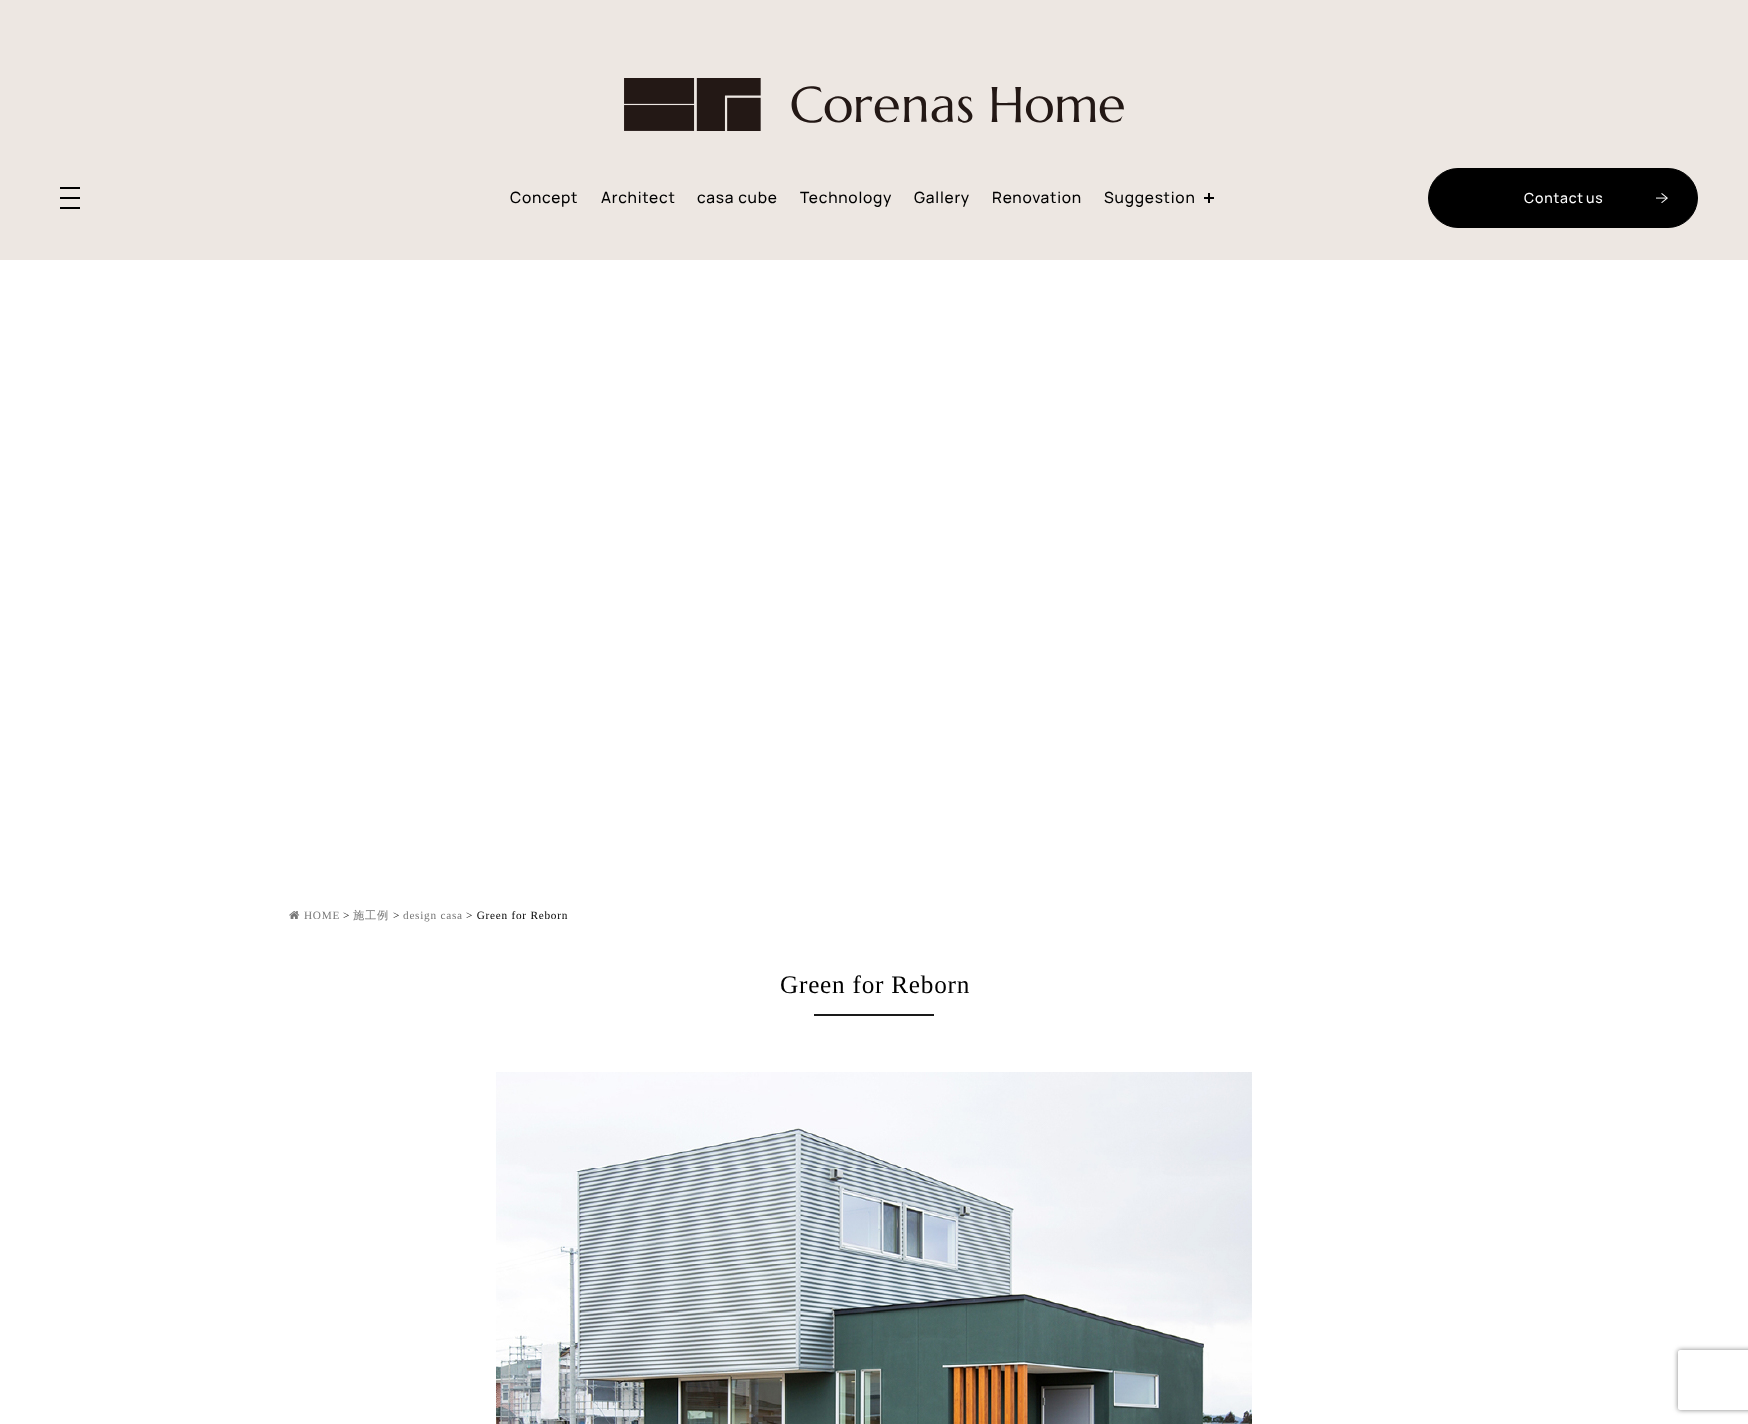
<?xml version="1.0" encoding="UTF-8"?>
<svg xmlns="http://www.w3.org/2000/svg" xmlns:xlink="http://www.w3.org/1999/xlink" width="1748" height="1424">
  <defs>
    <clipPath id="clip1"><path d="M 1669 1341 h 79 v 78 h -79 z m 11 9 h 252 c 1 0 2 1 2 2 v 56 c 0 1 -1 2 -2 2 h -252 c -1 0 -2 -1 -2 -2 v -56 c 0 -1 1 -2 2 -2 z" clip-rule="evenodd" /></clipPath>
  </defs>
  <rect width="100%" height="100%" fill="#ffffff" />
  <rect width="1748" height="260" fill="#ede7e2" />
  <image x="624" y="78" width="500" height="53" xlink:href="image1.png" />
  <rect x="60" y="187" width="20" height="2" fill="#000000" />
  <rect x="60" y="197" width="20" height="2" fill="#000000" />
  <rect x="60" y="207" width="20" height="2" fill="#000000" />
  <rect x="1204" y="197" width="10" height="2" fill="#000000" />
  <rect x="1208" y="193" width="2" height="10" fill="#000000" />
  <rect x="1428.5" y="168.5" width="269" height="59" rx="29.5" fill="#000000" stroke="#000000" />
  <image x="1656" y="193" width="12" height="10" xlink:href="image2.png" />
  <image x="289" y="911" width="11" height="8" xlink:href="image3.png" />
  <rect x="814" y="1014" width="120" height="2" fill="#1a1a1a" />
  <image x="496" y="1072" width="756" height="352" xlink:href="image4.png" />
  <g clip-path="url(#clip1)">
    <rect x="1678" y="1350" width="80" height="60" rx="2" fill="#808080" filter="blur(2.5px)" />
  </g>
  <text x="510" y="203" style="font-family: Manrope; font-size: 15.5px; font-weight: 500; letter-spacing: 0.75px; fill: #000000">Concept</text>
  <text x="601" y="203" style="font-family: Manrope; font-size: 15.5px; font-weight: 500; letter-spacing: 0.75px; fill: #000000">Architect</text>
  <text x="697" y="203" style="font-family: Manrope; font-size: 15.5px; font-weight: 500; letter-spacing: 0.75px; fill: #000000">casa cube</text>
  <text x="800" y="203" style="font-family: Manrope; font-size: 15.5px; font-weight: 500; letter-spacing: 0.75px; fill: #000000">Technology</text>
  <text x="914" y="203" style="font-family: Manrope; font-size: 15.5px; font-weight: 500; letter-spacing: 0.75px; fill: #000000">Gallery</text>
  <text x="992" y="203" style="font-family: Manrope; font-size: 15.5px; font-weight: 500; letter-spacing: 0.75px; fill: #000000">Renovation</text>
  <text x="1104" y="203" style="font-family: Manrope; font-size: 15.5px; font-weight: 500; letter-spacing: 0.75px; fill: #000000">Suggestion</text>
  <text x="1524" y="203" style="font-family: Manrope; font-size: 14px; font-weight: 500; letter-spacing: -1px; fill: #ffffff">C o n t a c t</text>
  <text x="1586" y="203" style="font-family: Manrope; font-size: 14px; font-weight: 500; letter-spacing: -1px; fill: #ffffff">u s</text>
  <text x="304" y="919" style="font-family: Liberation Serif; font-size: 11.25px; letter-spacing: 0.75px; fill: #777777">HOME</text>
  <text x="343" y="919" style="font-family: Liberation Serif; font-size: 11.25px; letter-spacing: 0.75px; fill: #000000">&gt;</text>
  <text x="353" y="919" style="font-family: WenQuanYi Zen Hei; font-size: 11.25px; font-weight: 500; letter-spacing: 0.75px; fill: #777777">施工例</text>
  <text x="393" y="919" style="font-family: Liberation Serif; font-size: 11.25px; letter-spacing: 0.75px; fill: #000000">&gt;</text>
  <text x="403" y="919" style="font-family: Liberation Serif; font-size: 11.25px; letter-spacing: 0.75px; fill: #777777">design casa</text>
  <text x="466" y="919" style="font-family: Liberation Serif; font-size: 11.25px; letter-spacing: 0.75px; fill: #000000">&gt; Green for Reborn</text>
  <text x="780" y="993" style="font-family: Liberation Serif; font-size: 25.25px; letter-spacing: 0.75px; fill: #000000">Green for Reborn</text>
</svg>
